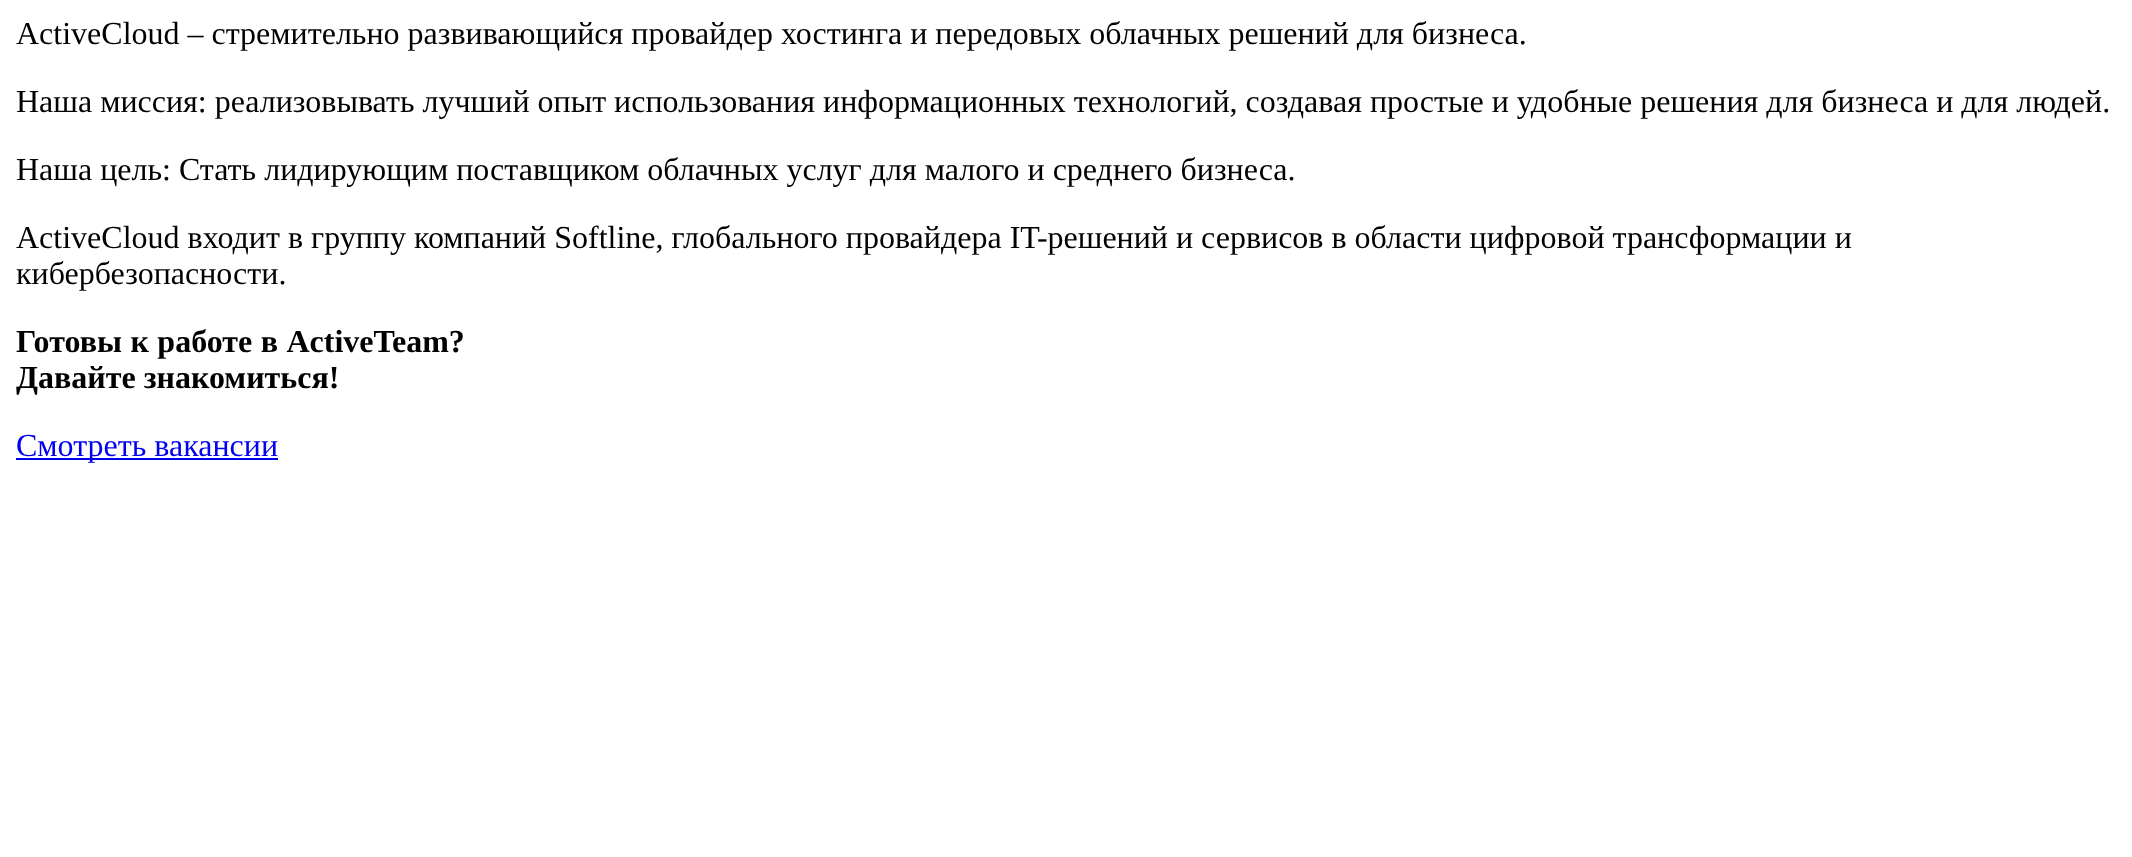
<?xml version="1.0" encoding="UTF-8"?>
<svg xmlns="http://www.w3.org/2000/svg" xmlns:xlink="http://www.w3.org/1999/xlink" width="2132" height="857">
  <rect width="100%" height="100%" fill="#ffffff" />
  <rect x="16" y="458" width="262" height="2" fill="#0000ee" />
  <text x="16" y="44" style="font-family: Liberation Serif; font-size: 32px; fill: #000000">ActiveCloud – стремительно развивающийся провайдер хостинга и передовых облачных решений для бизнеса.</text>
  <text x="16" y="112" style="font-family: Liberation Serif; font-size: 32px; fill: #000000">Наша миссия: реализовывать лучший опыт использования информационных технологий, создавая простые и удобные решения для бизнеса и для людей.</text>
  <text x="16" y="180" style="font-family: Liberation Serif; font-size: 32px; fill: #000000">Наша цель: Стать лидирующим поставщиком облачных услуг для малого и среднего бизнеса.</text>
  <text x="16" y="248" style="font-family: Liberation Serif; font-size: 32px; fill: #000000">ActiveCloud входит в группу компаний Softline, глобального провайдера IT-решений и сервисов в области цифровой трансформации и</text>
  <text x="16" y="284" style="font-family: Liberation Serif; font-size: 32px; fill: #000000">кибербезопасности.</text>
  <text x="16" y="352" word-spacing="0.5" style="font-family: Liberation Serif; font-size: 32px; font-weight: bold; fill: #000000">Готовы к работе в ActiveTeam?</text>
  <text x="16" y="388" style="font-family: Liberation Serif; font-size: 32px; font-weight: bold; fill: #000000">Давайте знакомиться!</text>
  <text x="16" y="456" style="font-family: Liberation Serif; font-size: 32px; fill: #0000ee">Смотреть вакансии</text>
</svg>
